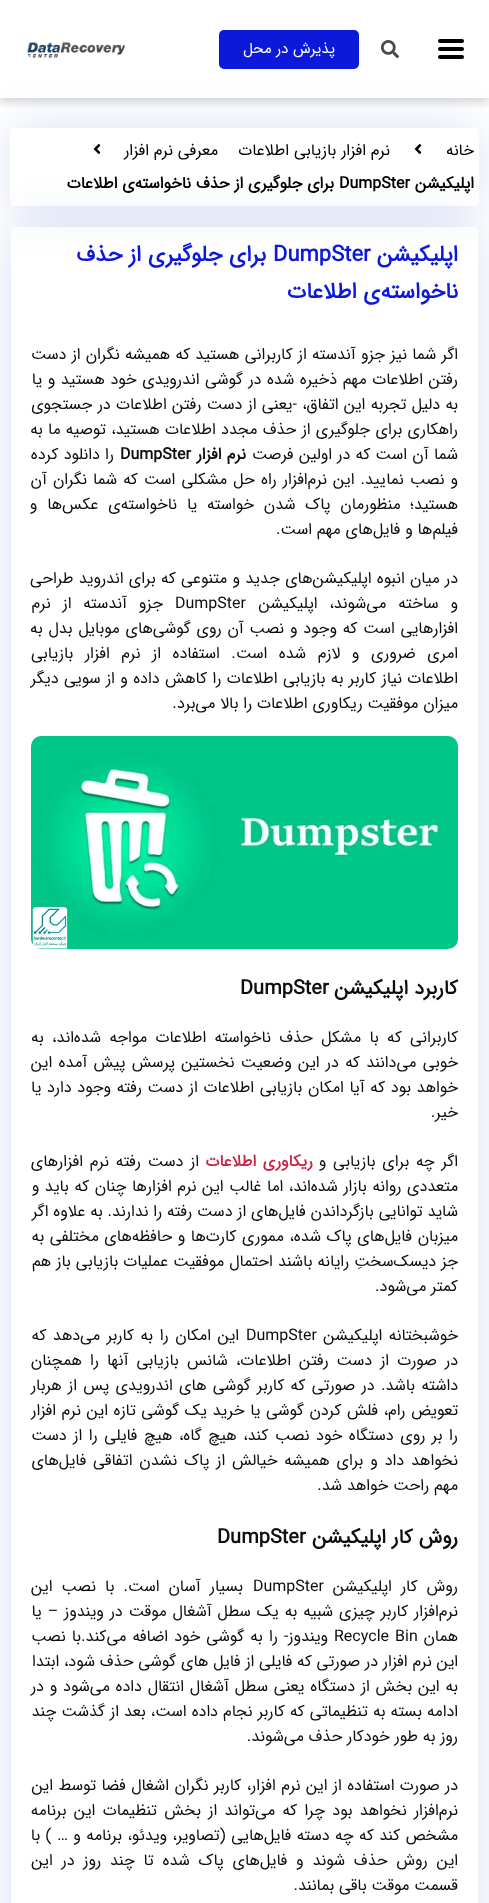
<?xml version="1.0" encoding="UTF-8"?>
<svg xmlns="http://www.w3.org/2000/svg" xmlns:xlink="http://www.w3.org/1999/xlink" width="489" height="1903">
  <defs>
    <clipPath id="clip1"><rect x="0" y="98" width="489" height="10" /></clipPath>
    <clipPath id="clip2"><path d="M 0 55 h 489 v 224 h -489 z m 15 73 h 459 c 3 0 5 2 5 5 v 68 c 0 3 -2 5 -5 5 h -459 c -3 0 -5 -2 -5 -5 v -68 c 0 -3 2 -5 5 -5 z" clip-rule="evenodd" /></clipPath>
    <clipPath id="clip3"><path d="M 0 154 h 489 v 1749 h -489 z m 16 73 h 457 c 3 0 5 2 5 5 v 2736 c 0 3 -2 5 -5 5 h -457 c -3 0 -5 -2 -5 -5 v -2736 c 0 -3 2 -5 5 -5 z" clip-rule="evenodd" /></clipPath>
  </defs>
  <rect width="100%" height="100%" fill="#ffffff" />
  <g clip-path="url(#clip1)">
    <rect y="4" width="489" height="98" fill="#000000" fill-opacity="0.17" filter="blur(5px)" />
  </g>
  <rect x="438" y="47" width="26" height="4" rx="2" fill="#000000" />
  <rect x="438" y="39" width="26" height="4" rx="2" fill="#000000" />
  <rect x="438" y="55" width="26" height="4" rx="2" fill="#000000" />
  <image x="380" y="40" width="19" height="19" xlink:href="image1.png" />
  <rect x="219" y="30" width="140" height="39" rx="5" fill="#0d19d8" />
  <image x="27" y="42" width="99" height="17" xlink:href="image2.png" />
  <g clip-path="url(#clip2)">
    <rect x="13" y="131" width="463" height="72" rx="2" fill="#002dac" fill-opacity="0.17" filter="blur(25px)" />
  </g>
  <image x="414" y="144" width="8" height="10" xlink:href="image3.png" />
  <image x="93" y="144" width="8" height="10" xlink:href="image3.png" />
  <g clip-path="url(#clip3)">
    <rect x="14" y="230" width="461" height="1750" rx="2" fill="#002dac" fill-opacity="0.17" filter="blur(25px)" />
  </g>
  <image x="31" y="736" width="427" height="213" xlink:href="image4.png" />
  <text x="335" y="53" style="font-family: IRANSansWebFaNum; font-size: 15px; direction: rtl; fill: #ffffff">پذیرش در محل</text>
  <text x="474" y="155" style="font-family: IRANSansWebFaNum; font-size: 16px; direction: rtl; fill: #000000">خانه</text>
  <text x="390" y="155" style="font-family: IRANSansWebFaNum; font-size: 16px; direction: rtl; fill: #000000">نرم افزار بازیابی اطلاعات</text>
  <text x="218" y="155" style="font-family: IRANSansWebFaNum; font-size: 16px; direction: rtl; fill: #000000">معرفی نرم افزار</text>
  <text x="474" y="188" style="font-family: IRANSansWebFaNum; font-size: 16px; font-weight: bold; direction: rtl; fill: #000000">اپلیکیشن</text>
  <text x="339" y="188" style="font-family: IRANSansWebFaNum; font-size: 16px; font-weight: bold; fill: #000000">DumpSter</text>
  <text x="334" y="188" style="font-family: IRANSansWebFaNum; font-size: 16px; font-weight: bold; direction: rtl; fill: #000000">برای جلوگیری از حذف ناخواسته‌ی اطلاعات</text>
  <text x="458" y="261" style="font-family: IRANSansWebFaNum; font-size: 22px; font-weight: bold; direction: rtl; fill: #0d19d8">اپلیکیشن</text>
  <text x="273" y="261" style="font-family: IRANSansWebFaNum; font-size: 22px; font-weight: bold; fill: #0d19d8">DumpSter</text>
  <text x="266" y="261" style="font-family: IRANSansWebFaNum; font-size: 22px; font-weight: bold; direction: rtl; fill: #0d19d8">برای جلوگیری از حذف</text>
  <text x="458" y="298" style="font-family: IRANSansWebFaNum; font-size: 22px; font-weight: bold; direction: rtl; fill: #0d19d8">ناخواسته‌ی اطلاعات</text>
  <text x="458" y="359" word-spacing="0.4" style="font-family: IRANSansWebFaNum; font-size: 16px; direction: rtl; fill: #0f0e0e">اگر شما نیز جزو آندسته از کاربرانی هستید که همیشه نگران از دست</text>
  <text x="458" y="384" word-spacing="0.75" style="font-family: IRANSansWebFaNum; font-size: 16px; direction: rtl; fill: #0f0e0e">رفتن اطلاعات مهم ذخیره شده در گوشی اندرویدی خود هستید و یا</text>
  <text x="458" y="409" word-spacing="0.5" style="font-family: IRANSansWebFaNum; font-size: 16px; direction: rtl; fill: #0f0e0e">به دلیل تجربه این اتفاق، -یعنی از دست رفتن اطلاعات در جستجوی</text>
  <text x="458" y="434" word-spacing="0.5" style="font-family: IRANSansWebFaNum; font-size: 16px; direction: rtl; fill: #0f0e0e">راهکاری برای جلوگیری از حذف مجدد اطلاعات هستید، توصیه ما به</text>
  <text x="458" y="459" word-spacing="0.5" style="font-family: IRANSansWebFaNum; font-size: 16px; direction: rtl; fill: #0f0e0e">شما آن است که در اولین فرصت</text>
  <text x="246" y="459" word-spacing="0.5" style="font-family: IRANSansWebFaNum; font-size: 16px; font-weight: bold; direction: rtl; fill: #0f0e0e">نرم افزار</text>
  <text x="120" y="459" style="font-family: IRANSansWebFaNum; font-size: 16px; font-weight: bold; fill: #0f0e0e">DumpSter</text>
  <text x="114" y="459" word-spacing="0.5" style="font-family: IRANSansWebFaNum; font-size: 16px; direction: rtl; fill: #0f0e0e">را دانلود کرده</text>
  <text x="458" y="484" word-spacing="1.25" style="font-family: IRANSansWebFaNum; font-size: 16px; direction: rtl; fill: #0f0e0e">و نصب نمایید. این نرم‌افزار راه‌ حل مشکلی است که شما نگران آن</text>
  <text x="458" y="509" word-spacing="5" style="font-family: IRANSansWebFaNum; font-size: 16px; direction: rtl; fill: #0f0e0e">هستید؛ منظورمان پاک شدن خواسته یا ناخواسته‌ی عکس‌ها و</text>
  <text x="458" y="534" style="font-family: IRANSansWebFaNum; font-size: 16px; direction: rtl; fill: #0f0e0e">فیلم‌ها و فایل‌های مهم است.</text>
  <text x="458" y="583" word-spacing="0.5" style="font-family: IRANSansWebFaNum; font-size: 16px; direction: rtl; fill: #0f0e0e">در میان انبوه اپلیکیشن‌های جدید و متنوعی که برای اندروید طراحی</text>
  <text x="458" y="608" word-spacing="7" style="font-family: IRANSansWebFaNum; font-size: 16px; direction: rtl; fill: #0f0e0e">و ساخته می‌شوند، اپلیکیشن</text>
  <text x="175" y="608" style="font-family: IRANSansWebFaNum; font-size: 16px; fill: #0f0e0e">DumpSter</text>
  <text x="163" y="608" word-spacing="7" style="font-family: IRANSansWebFaNum; font-size: 16px; direction: rtl; fill: #0f0e0e">جزو آندسته از نرم</text>
  <text x="458" y="633" word-spacing="1" style="font-family: IRANSansWebFaNum; font-size: 16px; direction: rtl; fill: #0f0e0e">افزارهایی است که وجود و نصب آن‌ روی گوشی‌های موبایل بدل به</text>
  <text x="458" y="658" word-spacing="6.75" style="font-family: IRANSansWebFaNum; font-size: 16px; direction: rtl; fill: #0f0e0e">امری ضروری و لازم شده است. استفاده از نرم افزار بازیابی</text>
  <text x="458" y="683" word-spacing="0.6" style="font-family: IRANSansWebFaNum; font-size: 16px; direction: rtl; fill: #0f0e0e">اطلاعات نیاز کاربر به بازیابی اطلاعات را کاهش داده و از سویی دیگر</text>
  <text x="458" y="708" style="font-family: IRANSansWebFaNum; font-size: 16px; direction: rtl; fill: #0f0e0e">میزان موفقیت ریکاوری اطلاعات را بالا می‌برد.</text>
  <text x="458" y="994" style="font-family: IRANSansWebFaNum; font-size: 20px; font-weight: bold; direction: rtl; fill: #0f0e0e">کاربرد اپلیکیشن</text>
  <text x="240" y="994" style="font-family: IRANSansWebFaNum; font-size: 20px; font-weight: bold; fill: #0f0e0e">DumpSter</text>
  <text x="458" y="1042" word-spacing="3.5" style="font-family: IRANSansWebFaNum; font-size: 16px; direction: rtl; fill: #0f0e0e">کاربرانی که با مشکل حذف ناخواسته اطلاعات مواجه شده‌اند، به</text>
  <text x="458" y="1067" word-spacing="1.5" style="font-family: IRANSansWebFaNum; font-size: 16px; direction: rtl; fill: #0f0e0e">خوبی می‌دانند که در این وضعیت نخستین پرسش پیش آمده این</text>
  <text x="458" y="1092" word-spacing="0.9" style="font-family: IRANSansWebFaNum; font-size: 16px; direction: rtl; fill: #0f0e0e">خواهد بود که آیا امکان بازیابی اطلاعات از دست رفته وجود دارد یا</text>
  <text x="458" y="1117" style="font-family: IRANSansWebFaNum; font-size: 16px; direction: rtl; fill: #0f0e0e">خیر.</text>
  <text x="458" y="1166" word-spacing="2" style="font-family: IRANSansWebFaNum; font-size: 16px; direction: rtl; fill: #0f0e0e">اگر چه برای بازیابی و</text>
  <text x="313" y="1166" word-spacing="1.75" style="font-family: IRANSansWebFaNum; font-size: 16px; font-weight: bold; direction: rtl; fill: #c92647">ریکاوری اطلاعات</text>
  <text x="199" y="1166" word-spacing="2" style="font-family: IRANSansWebFaNum; font-size: 16px; direction: rtl; fill: #0f0e0e">از دست رفته نرم افزارهای</text>
  <text x="458" y="1191" word-spacing="0.75" style="font-family: IRANSansWebFaNum; font-size: 16px; direction: rtl; fill: #0f0e0e">متعددی روانه بازار شده‌‌اند، اما غالب این نرم افزارها چنان که باید و</text>
  <text x="458" y="1216" style="font-family: IRANSansWebFaNum; font-size: 16px; direction: rtl; fill: #0f0e0e">شاید توانایی بازگرداندن فایل‌های از دست رفته‌ را ندارند. به علاوه اگر</text>
  <text x="458" y="1241" word-spacing="0.75" style="font-family: IRANSansWebFaNum; font-size: 16px; direction: rtl; fill: #0f0e0e">میزبان فایل‌های پاک شده، مموری کارت‌ها و حافظه‌های مختلفی به</text>
  <text x="458" y="1266" word-spacing="0.25" style="font-family: IRANSansWebFaNum; font-size: 16px; direction: rtl; fill: #0f0e0e">جز‌ دیسک‌سختِ رایانه باشند احتمال موفقیت عملیات بازیابی باز هم</text>
  <text x="458" y="1291" style="font-family: IRANSansWebFaNum; font-size: 16px; direction: rtl; fill: #0f0e0e">کمتر می‌شود.</text>
  <text x="458" y="1340" word-spacing="1.75" style="font-family: IRANSansWebFaNum; font-size: 16px; direction: rtl; fill: #0f0e0e">خوشبختانه اپلیکیشن</text>
  <text x="246" y="1340" style="font-family: IRANSansWebFaNum; font-size: 16px; fill: #0f0e0e">DumpSter</text>
  <text x="239" y="1340" word-spacing="1.75" style="font-family: IRANSansWebFaNum; font-size: 16px; direction: rtl; fill: #0f0e0e">این امکان را به کاربر می‌دهد که</text>
  <text x="458" y="1365" word-spacing="3.25" style="font-family: IRANSansWebFaNum; font-size: 16px; direction: rtl; fill: #0f0e0e">در صورت از دست رفتن اطلاعات، شانس بازیابی آنها را همچنان</text>
  <text x="458" y="1390" word-spacing="1.5" style="font-family: IRANSansWebFaNum; font-size: 16px; direction: rtl; fill: #0f0e0e">داشته باشد. در صورتی که کاربر گوشی های اندرویدی پس از هربار</text>
  <text x="458" y="1415" word-spacing="0.75" style="font-family: IRANSansWebFaNum; font-size: 16px; direction: rtl; fill: #0f0e0e">تعویض رام، فلش کردن گوشی یا خرید یک گوشی تازه این نرم افزار</text>
  <text x="458" y="1440" word-spacing="1.75" style="font-family: IRANSansWebFaNum; font-size: 16px; direction: rtl; fill: #0f0e0e">را بر روی دستگاه خود نصب کند، هیچ گاه، هیچ فایلی را از دست</text>
  <text x="458" y="1465" word-spacing="2.1" style="font-family: IRANSansWebFaNum; font-size: 16px; direction: rtl; fill: #0f0e0e">نخواهد داد و برای همیشه خیالش از پاک نشدن اتفاقی فایل‌های</text>
  <text x="458" y="1490" style="font-family: IRANSansWebFaNum; font-size: 16px; direction: rtl; fill: #0f0e0e">مهم راحت خواهد شد.</text>
  <text x="458" y="1543" style="font-family: IRANSansWebFaNum; font-size: 20px; font-weight: bold; direction: rtl; fill: #0f0e0e">روش کار اپلیکیشن</text>
  <text x="217" y="1543" style="font-family: IRANSansWebFaNum; font-size: 20px; font-weight: bold; fill: #0f0e0e">DumpSter</text>
  <text x="458" y="1591" word-spacing="4.25" style="font-family: IRANSansWebFaNum; font-size: 16px; direction: rtl; fill: #0f0e0e">روش کار اپلیکیشن</text>
  <text x="253" y="1591" style="font-family: IRANSansWebFaNum; font-size: 16px; fill: #0f0e0e">DumpSter</text>
  <text x="243" y="1591" word-spacing="4.25" style="font-family: IRANSansWebFaNum; font-size: 16px; direction: rtl; fill: #0f0e0e">بسیار آسان است. با نصب این</text>
  <text x="458" y="1616" word-spacing="1.1" style="font-family: IRANSansWebFaNum; font-size: 16px; direction: rtl; fill: #0f0e0e">نرم‌افزار کاربر چیزی شبیه به یک سطل آشغال موقت در ویندوز – یا</text>
  <text x="458" y="1641" style="font-family: IRANSansWebFaNum; font-size: 16px; direction: rtl; fill: #0f0e0e">همان</text>
  <text x="334" y="1641" word-spacing="1.25" style="font-family: IRANSansWebFaNum; font-size: 16px; fill: #0f0e0e">Recycle Bin</text>
  <text x="328" y="1641" word-spacing="1.25" style="font-family: IRANSansWebFaNum; font-size: 16px; direction: rtl; fill: #0f0e0e">ویندوز- را به گوشی خود اضافه می‌کند.با نصب</text>
  <text x="458" y="1666" style="font-family: IRANSansWebFaNum; font-size: 16px; direction: rtl; fill: #0f0e0e">این نرم افزار در صورتی که فایلی از فایل های گوشی حذف شود، ابتدا</text>
  <text x="458" y="1691" word-spacing="1" style="font-family: IRANSansWebFaNum; font-size: 16px; direction: rtl; fill: #0f0e0e">به این بخش از دستگاه یعنی سطل آشغال انتقال داده می‌شود و در</text>
  <text x="458" y="1716" word-spacing="0.25" style="font-family: IRANSansWebFaNum; font-size: 16px; direction: rtl; fill: #0f0e0e">ادامه بسته به تنظیماتی که کاربر نجام داده است، بعد از گذشت چند</text>
  <text x="458" y="1741" style="font-family: IRANSansWebFaNum; font-size: 16px; direction: rtl; fill: #0f0e0e">روز به طور خودکار حذف می‌شوند.</text>
  <text x="458" y="1790" word-spacing="0.6" style="font-family: IRANSansWebFaNum; font-size: 16px; direction: rtl; fill: #0f0e0e">در صورت استفاده از این نرم افزار، کاربر نگران اشغال فضا توسط این</text>
  <text x="458" y="1815" word-spacing="2.5" style="font-family: IRANSansWebFaNum; font-size: 16px; direction: rtl; fill: #0f0e0e">نرم‌افزار نخواهد بود چرا که می‌تواند از بخش تنظیمات این برنامه</text>
  <text x="458" y="1840" word-spacing="0.6" style="font-family: IRANSansWebFaNum; font-size: 16px; direction: rtl; fill: #0f0e0e">مشخص کند که چه دسته فایل‌هایی (تصاویر، ویدئو، برنامه و … ) با</text>
  <text x="458" y="1865" word-spacing="4" style="font-family: IRANSansWebFaNum; font-size: 16px; direction: rtl; fill: #0f0e0e">این روش حذف شوند و فایل‌های پاک شده تا چند روز در این</text>
  <text x="458" y="1890" style="font-family: IRANSansWebFaNum; font-size: 16px; direction: rtl; fill: #0f0e0e">قسمت موقت باقی بمانند.</text>
</svg>
